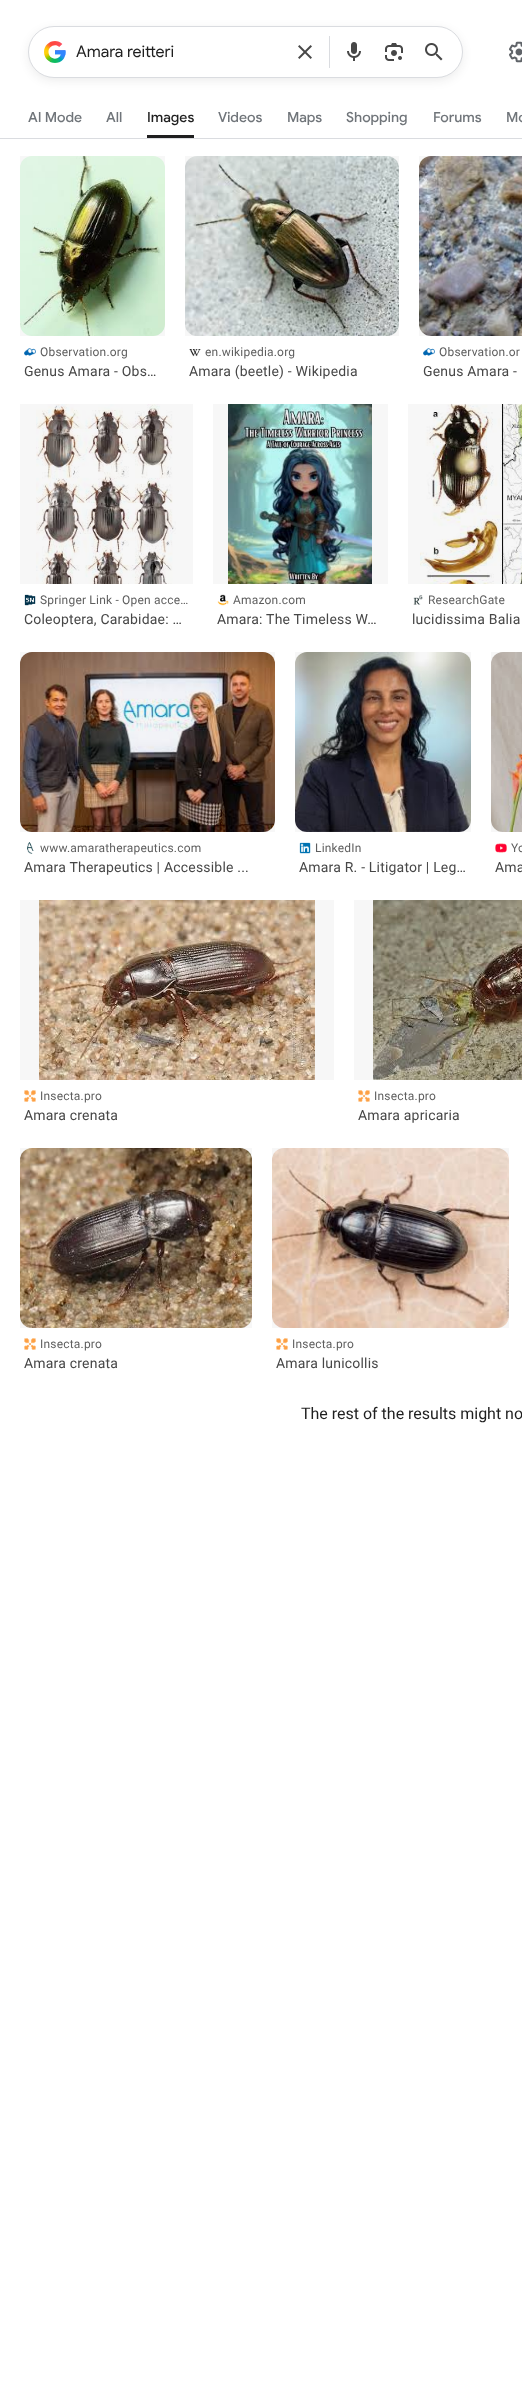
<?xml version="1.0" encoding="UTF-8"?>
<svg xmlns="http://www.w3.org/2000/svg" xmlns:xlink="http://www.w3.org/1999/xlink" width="522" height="2408">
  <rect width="100%" height="100%" fill="#ffffff" />
  <rect x="28" y="29" width="435" height="52" rx="26" fill="#1f1f1f" fill-opacity="0.08" filter="blur(5px)" />
  <rect x="28.5" y="26.5" width="434" height="51" rx="25.5" fill="#ffffff" stroke="#dadce0" />
  <image x="44" y="41" width="22" height="22" xlink:href="image1.png" />
  <image x="298" y="45" width="14" height="14" xlink:href="image2.png" />
  <rect x="329" y="36" width="1" height="32" fill="#dadce0" />
  <image x="347" y="42" width="14" height="19" xlink:href="image3.png" />
  <image x="385" y="43" width="18" height="18" xlink:href="image4.png" />
  <image x="425" y="43" width="18" height="18" xlink:href="image5.png" />
  <image x="509" y="41" width="13" height="22" xlink:href="image6.png" />
  <rect x="147" y="135" width="47" height="3" fill="#1f1f1f" />
  <rect y="138" width="522" height="1" fill="#dadce0" />
  <image x="20" y="156" width="145" height="180" xlink:href="image7.png" />
  <rect x="20" y="156" width="145" height="180" fill="#000000" fill-opacity="0.03" />
  <image x="24" y="348" width="12" height="8" xlink:href="image8.png" />
  <image x="185" y="156" width="214" height="180" xlink:href="image9.png" />
  <rect x="185" y="156" width="214" height="180" fill="#000000" fill-opacity="0.03" />
  <image x="189" y="349" width="12" height="8" xlink:href="image10.png" />
  <image x="419" y="156" width="103" height="180" xlink:href="image11.png" />
  <rect x="419" y="156" width="103" height="180" fill="#000000" fill-opacity="0.03" />
  <image x="423" y="348" width="12" height="8" xlink:href="image12.png" />
  <image x="36" y="404" width="140" height="180" xlink:href="image13.png" />
  <rect x="20" y="404" width="173" height="180" fill="#000000" fill-opacity="0.03" />
  <image x="24" y="594" width="12" height="12" xlink:href="image14.png" />
  <image x="228" y="404" width="144" height="180" xlink:href="image15.png" />
  <rect x="213" y="404" width="175" height="180" fill="#000000" fill-opacity="0.03" />
  <image x="217" y="594" width="12" height="12" xlink:href="image16.png" />
  <image x="420" y="404" width="102" height="180" xlink:href="image17.png" />
  <rect x="408" y="404" width="114" height="180" fill="#000000" fill-opacity="0.03" />
  <image x="413" y="595" width="10" height="10" xlink:href="image18.png" />
  <image x="20" y="652" width="255" height="180" xlink:href="image19.png" />
  <rect x="20" y="652" width="255" height="180" fill="#000000" fill-opacity="0.03" />
  <image x="27" y="842" width="7" height="12" xlink:href="image20.png" />
  <image x="295" y="652" width="176" height="180" xlink:href="image21.png" />
  <rect x="295" y="652" width="176" height="180" fill="#000000" fill-opacity="0.03" />
  <image x="299" y="842" width="12" height="12" xlink:href="image22.png" />
  <image x="491" y="652" width="31" height="180" xlink:href="image23.png" />
  <rect x="491" y="652" width="31" height="180" fill="#000000" fill-opacity="0.03" />
  <image x="495" y="843" width="12" height="10" xlink:href="image24.png" />
  <image x="39" y="900" width="276" height="180" xlink:href="image25.png" />
  <rect x="20" y="900" width="314" height="180" fill="#000000" fill-opacity="0.03" />
  <image x="24" y="1090" width="12" height="12" xlink:href="image26.png" />
  <image x="373" y="900" width="149" height="180" xlink:href="image27.png" />
  <rect x="354" y="900" width="168" height="180" fill="#000000" fill-opacity="0.03" />
  <image x="358" y="1090" width="12" height="12" xlink:href="image28.png" />
  <image x="20" y="1148" width="232" height="180" xlink:href="image29.png" />
  <rect x="20" y="1148" width="232" height="180" fill="#000000" fill-opacity="0.03" />
  <image x="24" y="1338" width="12" height="12" xlink:href="image26.png" />
  <image x="272" y="1148" width="237" height="180" xlink:href="image30.png" />
  <rect x="272" y="1148" width="237" height="180" fill="#000000" fill-opacity="0.03" />
  <image x="276" y="1338" width="12" height="12" xlink:href="image31.png" />
  <text x="76" y="57" style="font-family: Google Sans; font-size: 16px; fill: #1f1f1f">Amara reitteri</text>
  <text x="28" y="122" style="font-family: Google Sans; font-size: 14px; font-weight: 500; fill: #70757a">AI Mode</text>
  <text x="106" y="122" style="font-family: Google Sans; font-size: 14px; font-weight: 500; fill: #70757a">All</text>
  <text x="147" y="122" style="font-family: Google Sans; font-size: 14px; font-weight: 500; fill: #1f1f1f">Images</text>
  <text x="218" y="122" style="font-family: Google Sans; font-size: 14px; font-weight: 500; fill: #70757a">Videos</text>
  <text x="287" y="122" style="font-family: Google Sans; font-size: 14px; font-weight: 500; fill: #70757a">Maps</text>
  <text x="346" y="122" style="font-family: Google Sans; font-size: 14px; font-weight: 500; fill: #70757a">Shopping</text>
  <text x="433" y="122" style="font-family: Google Sans; font-size: 14px; font-weight: 500; fill: #70757a">Forums</text>
  <text x="506" y="122" style="font-family: Google Sans; font-size: 14px; font-weight: 500; fill: #70757a">Mo</text>
  <text x="40" y="356" style="font-family: Roboto; font-size: 12px; letter-spacing: 0.2px; fill: #5e5e5e">Observation.org</text>
  <text x="24" y="376" style="font-family: Roboto; font-size: 14px; letter-spacing: 0.2px; fill: #474747">Genus Amara - Obs…</text>
  <text x="205" y="356" style="font-family: Roboto; font-size: 12px; letter-spacing: 0.2px; fill: #5e5e5e">en.wikipedia.org</text>
  <text x="189" y="376" style="font-family: Roboto; font-size: 14px; letter-spacing: 0.2px; fill: #474747">Amara (beetle) - Wikipedia</text>
  <text x="439" y="356" style="font-family: Roboto; font-size: 12px; letter-spacing: 0.2px; fill: #5e5e5e">Observation.or</text>
  <text x="423" y="376" style="font-family: Roboto; font-size: 14px; letter-spacing: 0.2px; fill: #474747">Genus Amara -</text>
  <text x="40" y="604" style="font-family: Roboto; font-size: 12px; letter-spacing: 0.2px; fill: #5e5e5e">Springer Link - Open acce…</text>
  <text x="24" y="624" style="font-family: Roboto; font-size: 14px; letter-spacing: 0.2px; fill: #474747">Coleoptera, Carabidae: …</text>
  <text x="233" y="604" style="font-family: Roboto; font-size: 12px; letter-spacing: 0.2px; fill: #5e5e5e">Amazon.com</text>
  <text x="217" y="624" style="font-family: Roboto; font-size: 14px; letter-spacing: 0.2px; fill: #474747">Amara: The Timeless W…</text>
  <text x="428" y="604" style="font-family: Roboto; font-size: 12px; letter-spacing: 0.2px; fill: #5e5e5e">ResearchGate</text>
  <text x="412" y="624" style="font-family: Roboto; font-size: 14px; letter-spacing: 0.2px; fill: #474747">lucidissima Balia</text>
  <text x="40" y="852" style="font-family: Roboto; font-size: 12px; letter-spacing: 0.2px; fill: #5e5e5e">www.amaratherapeutics.com</text>
  <text x="24" y="872" style="font-family: Roboto; font-size: 14px; letter-spacing: 0.2px; fill: #474747">Amara Therapeutics | Accessible ...</text>
  <text x="315" y="852" style="font-family: Roboto; font-size: 12px; letter-spacing: 0.2px; fill: #5e5e5e">LinkedIn</text>
  <text x="299" y="872" style="font-family: Roboto; font-size: 14px; letter-spacing: 0.2px; fill: #474747">Amara R. - Litigator | Leg…</text>
  <text x="511" y="852" style="font-family: Roboto; font-size: 12px; letter-spacing: 0.2px; fill: #5e5e5e">Yo</text>
  <text x="495" y="872" style="font-family: Roboto; font-size: 14px; letter-spacing: 0.2px; fill: #474747">Ama</text>
  <text x="40" y="1100" style="font-family: Roboto; font-size: 12px; letter-spacing: 0.2px; fill: #5e5e5e">Insecta.pro</text>
  <text x="24" y="1120" style="font-family: Roboto; font-size: 14px; letter-spacing: 0.2px; fill: #474747">Amara crenata</text>
  <text x="374" y="1100" style="font-family: Roboto; font-size: 12px; letter-spacing: 0.2px; fill: #5e5e5e">Insecta.pro</text>
  <text x="358" y="1120" style="font-family: Roboto; font-size: 14px; letter-spacing: 0.2px; fill: #474747">Amara apricaria</text>
  <text x="40" y="1348" style="font-family: Roboto; font-size: 12px; letter-spacing: 0.2px; fill: #5e5e5e">Insecta.pro</text>
  <text x="24" y="1368" style="font-family: Roboto; font-size: 14px; letter-spacing: 0.2px; fill: #474747">Amara crenata</text>
  <text x="292" y="1348" style="font-family: Roboto; font-size: 12px; letter-spacing: 0.2px; fill: #5e5e5e">Insecta.pro</text>
  <text x="276" y="1368" style="font-family: Roboto; font-size: 14px; letter-spacing: 0.2px; fill: #474747">Amara lunicollis</text>
  <text x="301" y="1419" style="font-family: Roboto; font-size: 16px; fill: #1f1f1f">The rest of the results might no</text>
</svg>
